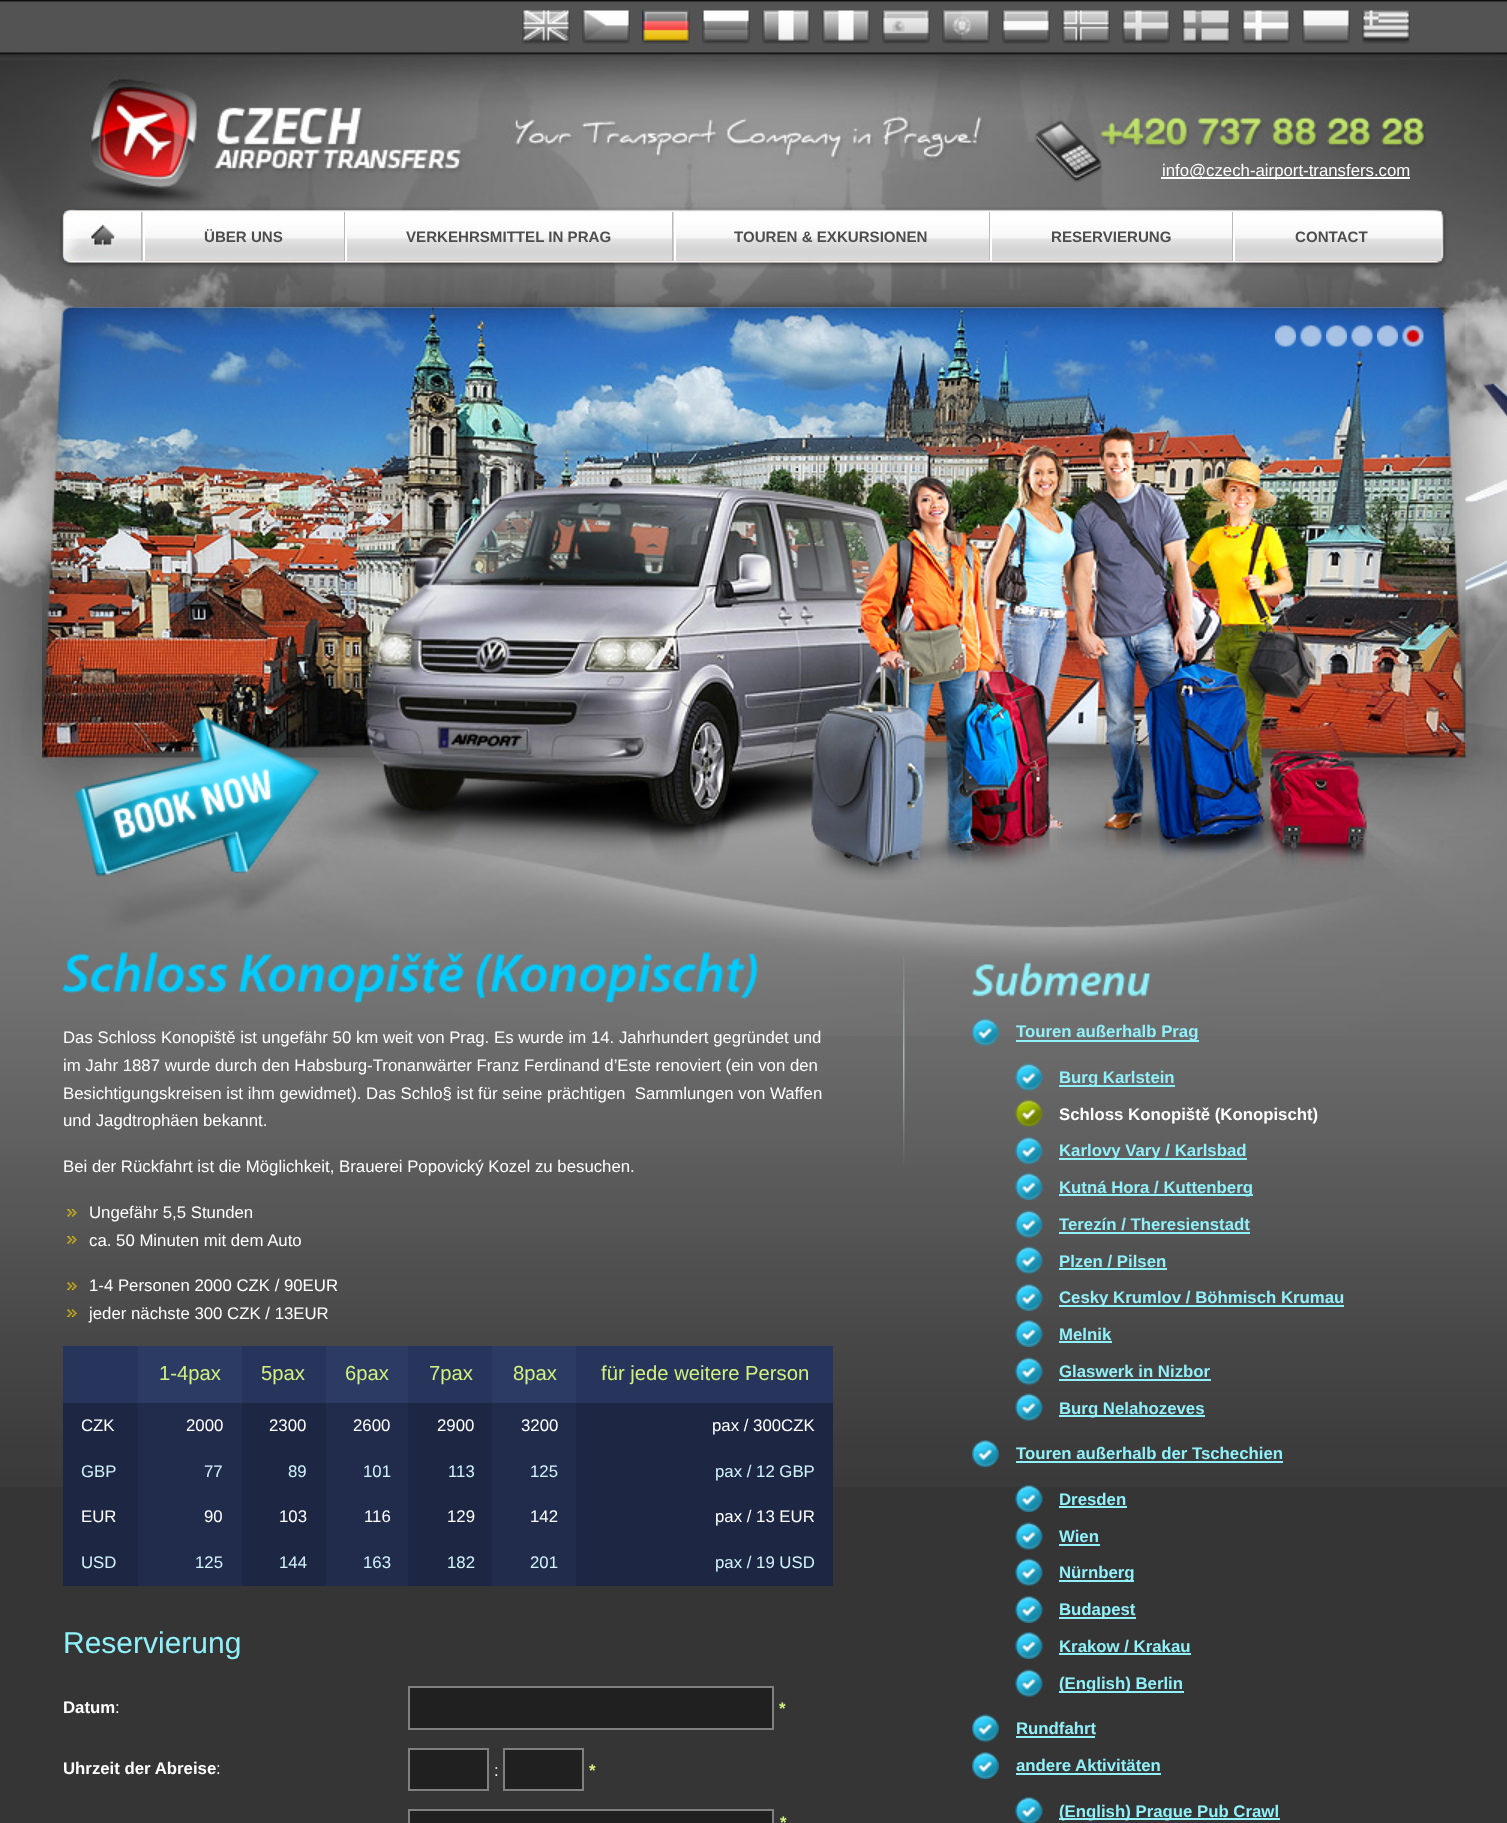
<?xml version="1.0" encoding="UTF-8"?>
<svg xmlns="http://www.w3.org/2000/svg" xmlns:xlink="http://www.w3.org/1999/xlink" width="1507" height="1823">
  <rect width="100%" height="100%" fill="#353535" />
  <image x="0" y="1036" width="1507" height="451" xlink:href="image1.png" />
  <image x="0" y="60" width="1507" height="976" xlink:href="image2.png" />
  <image x="0" y="0" width="1507" height="60" xlink:href="image3.png" />
  <image x="522" y="10" width="48" height="34" xlink:href="image4.png" />
  <image x="582" y="10" width="48" height="34" xlink:href="image5.png" />
  <image x="642" y="10" width="48" height="34" xlink:href="image6.png" />
  <image x="702" y="10" width="48" height="34" xlink:href="image7.png" />
  <image x="762" y="10" width="48" height="34" xlink:href="image8.png" />
  <image x="822" y="10" width="48" height="34" xlink:href="image9.png" />
  <image x="882" y="10" width="48" height="34" xlink:href="image10.png" />
  <image x="942" y="10" width="48" height="34" xlink:href="image11.png" />
  <image x="1002" y="10" width="48" height="34" xlink:href="image12.png" />
  <image x="1062" y="10" width="48" height="34" xlink:href="image13.png" />
  <image x="1122" y="10" width="48" height="34" xlink:href="image14.png" />
  <image x="1182" y="10" width="48" height="34" xlink:href="image15.png" />
  <image x="1242" y="10" width="48" height="34" xlink:href="image16.png" />
  <image x="1302" y="10" width="48" height="34" xlink:href="image17.png" />
  <image x="1362" y="10" width="48" height="34" xlink:href="image18.png" />
  <image x="75" y="77" width="375" height="133" xlink:href="image19.png" />
  <rect x="1161" y="177" width="249" height="2" fill="#ffffff" />
  <image x="64" y="211" width="77" height="50" xlink:href="image20.png" />
  <rect x="141" y="212" width="2" height="49" fill="#b8b8b8" />
  <image x="64" y="211" width="61" height="50" xlink:href="image21.png" />
  <image x="142" y="211" width="203" height="50" xlink:href="image22.png" />
  <rect x="344" y="212" width="1" height="49" fill="#b8b8b8" />
  <rect x="143" y="226" width="2" height="35" fill="#ffffff" />
  <image x="345" y="211" width="329" height="50" xlink:href="image23.png" />
  <rect x="672" y="212" width="2" height="49" fill="#b8b8b8" />
  <rect x="345" y="226" width="2" height="35" fill="#ffffff" />
  <image x="673" y="211" width="317" height="50" xlink:href="image24.png" />
  <rect x="989" y="212" width="1" height="49" fill="#b8b8b8" />
  <rect x="674" y="226" width="2" height="35" fill="#ffffff" />
  <image x="990" y="211" width="243" height="50" xlink:href="image25.png" />
  <rect x="1232" y="212" width="1" height="49" fill="#b8b8b8" />
  <rect x="990" y="226" width="2" height="35" fill="#ffffff" />
  <image x="1233" y="211" width="209" height="50" xlink:href="image26.png" />
  <rect x="1233" y="226" width="2" height="35" fill="#ffffff" />
  <image x="42" y="307" width="1424" height="451" xlink:href="image27.png" />
  <image x="1275" y="325" width="21" height="22" xlink:href="image28.png" />
  <image x="1300" y="325" width="22" height="22" xlink:href="image29.png" />
  <image x="1326" y="325" width="21" height="22" xlink:href="image30.png" />
  <image x="1351" y="325" width="22" height="22" xlink:href="image31.png" />
  <image x="1377" y="325" width="21" height="22" xlink:href="image32.png" />
  <image x="1402" y="325" width="22" height="22" xlink:href="image33.png" />
  <image x="75" y="427" width="1292" height="453" xlink:href="image34.png" />
  <image x="62" y="952" width="167" height="42" xlink:href="image35.png" />
  <image x="238" y="952" width="226" height="51" xlink:href="image36.png" />
  <image x="476" y="952" width="282" height="51" xlink:href="image37.png" />
  <image x="67" y="1209" width="10" height="8" xlink:href="image38.png" />
  <image x="67" y="1236" width="10" height="8" xlink:href="image39.png" />
  <image x="67" y="1282" width="10" height="8" xlink:href="image40.png" />
  <image x="67" y="1309" width="10" height="8" xlink:href="image41.png" />
  <rect x="63" y="1346" width="75" height="57" fill="#27345b" />
  <rect x="138" y="1346" width="104" height="57" fill="#2c3b64" />
  <rect x="242" y="1346" width="84" height="57" fill="#27345b" />
  <rect x="326" y="1346" width="82" height="57" fill="#2c3b64" />
  <rect x="408" y="1346" width="84" height="57" fill="#27345b" />
  <rect x="492" y="1346" width="84" height="57" fill="#2c3b64" />
  <rect x="576" y="1346" width="257" height="57" fill="#27345b" />
  <rect x="63" y="1403" width="75" height="183" fill="#1d2743" />
  <rect x="138" y="1403" width="104" height="183" fill="#212c4d" />
  <rect x="242" y="1403" width="84" height="183" fill="#1d2743" />
  <rect x="326" y="1403" width="82" height="183" fill="#212c4d" />
  <rect x="408" y="1403" width="84" height="183" fill="#1d2743" />
  <rect x="492" y="1403" width="84" height="183" fill="#212c4d" />
  <rect x="576" y="1403" width="257" height="183" fill="#1d2743" />
  <rect x="409" y="1687" width="364" height="42" fill="#202020" stroke="#808080" stroke-width="2" />
  <rect x="409" y="1749" width="79" height="41" fill="#202020" stroke="#808080" stroke-width="2" />
  <rect x="504" y="1749" width="79" height="41" fill="#202020" stroke="#808080" stroke-width="2" />
  <rect x="409" y="1810" width="364" height="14" fill="#202020" stroke="#808080" stroke-width="2" />
  <image x="903" y="955" width="2" height="210" xlink:href="image42.png" />
  <image x="971" y="962" width="180" height="35" xlink:href="image43.png" />
  <image x="972" y="1018" width="27" height="28" xlink:href="image44.png" />
  <rect x="1016" y="1040" width="183" height="2" fill="#90f1fa" />
  <image x="1015" y="1063" width="28" height="28" xlink:href="image45.png" />
  <rect x="1059" y="1085" width="116" height="2" fill="#90f1fa" />
  <image x="1015" y="1099" width="28" height="28" xlink:href="image46.png" />
  <image x="1015" y="1137" width="28" height="27" xlink:href="image47.png" />
  <rect x="1059" y="1158" width="188" height="2" fill="#90f1fa" />
  <image x="1015" y="1173" width="28" height="27" xlink:href="image48.png" />
  <rect x="1059" y="1194" width="194" height="2" fill="#90f1fa" />
  <image x="1015" y="1210" width="28" height="28" xlink:href="image49.png" />
  <rect x="1059" y="1232" width="191" height="2" fill="#90f1fa" />
  <image x="1015" y="1246" width="28" height="28" xlink:href="image50.png" />
  <rect x="1059" y="1268" width="108" height="2" fill="#90f1fa" />
  <image x="1015" y="1284" width="28" height="27" xlink:href="image51.png" />
  <rect x="1059" y="1305" width="285" height="2" fill="#90f1fa" />
  <image x="1015" y="1320" width="28" height="27" xlink:href="image52.png" />
  <rect x="1059" y="1341" width="53" height="2" fill="#90f1fa" />
  <image x="1015" y="1357" width="28" height="28" xlink:href="image53.png" />
  <rect x="1059" y="1379" width="152" height="2" fill="#90f1fa" />
  <image x="1015" y="1393" width="28" height="28" xlink:href="image54.png" />
  <rect x="1059" y="1415" width="146" height="2" fill="#90f1fa" />
  <image x="972" y="1440" width="27" height="27" xlink:href="image55.png" />
  <rect x="1016" y="1461" width="267" height="2" fill="#90f1fa" />
  <image x="1015" y="1485" width="28" height="27" xlink:href="image56.png" />
  <rect x="1059" y="1506" width="68" height="2" fill="#90f1fa" />
  <image x="1015" y="1522" width="28" height="28" xlink:href="image57.png" />
  <rect x="1059" y="1544" width="41" height="2" fill="#90f1fa" />
  <image x="1015" y="1558" width="28" height="28" xlink:href="image57.png" />
  <rect x="1059" y="1580" width="75" height="2" fill="#90f1fa" />
  <image x="1015" y="1596" width="28" height="27" xlink:href="image58.png" />
  <rect x="1059" y="1617" width="77" height="2" fill="#90f1fa" />
  <image x="1015" y="1632" width="28" height="27" xlink:href="image58.png" />
  <rect x="1059" y="1653" width="132" height="2" fill="#90f1fa" />
  <image x="1015" y="1669" width="28" height="28" xlink:href="image57.png" />
  <rect x="1059" y="1691" width="125" height="2" fill="#90f1fa" />
  <image x="972" y="1714" width="27" height="28" xlink:href="image59.png" />
  <rect x="1016" y="1736" width="79" height="2" fill="#90f1fa" />
  <image x="972" y="1752" width="27" height="27" xlink:href="image60.png" />
  <rect x="1016" y="1773" width="145" height="2" fill="#90f1fa" />
  <image x="1015" y="1797" width="28" height="26" xlink:href="image61.png" />
  <rect x="1059" y="1818" width="221" height="2" fill="#90f1fa" />
  <text x="1162" y="176" style="font-family: Liberation Sans; font-size: 16.8px; fill: #ffffff">info@czech-airport-transfers.com</text>
  <text x="204" y="242" style="font-family: Liberation Sans; font-size: 15.1px; font-weight: bold; fill: #4d4d4d">ÜBER UNS</text>
  <text x="406" y="242" style="font-family: Liberation Sans; font-size: 15.1px; font-weight: bold; fill: #4d4d4d">VERKEHRSMITTEL IN PRAG</text>
  <text x="734" y="242" style="font-family: Liberation Sans; font-size: 15.1px; font-weight: bold; fill: #4d4d4d">TOUREN &amp; EXKURSIONEN</text>
  <text x="1051" y="242" style="font-family: Liberation Sans; font-size: 15.1px; font-weight: bold; fill: #4d4d4d">RESERVIERUNG</text>
  <text x="1295" y="242" style="font-family: Liberation Sans; font-size: 15.1px; font-weight: bold; fill: #4d4d4d">CONTACT</text>
  <text x="63" y="1043" style="font-family: Liberation Sans; font-size: 16.8px; fill: #ffffff">Das Schloss Konopiště ist ungefähr 50 km weit von Prag. Es wurde im 14. Jahrhundert gegründet und</text>
  <text x="63" y="1071" style="font-family: Liberation Sans; font-size: 16.8px; fill: #ffffff">im Jahr 1887 wurde durch den Habsburg-Tronanwärter Franz Ferdinand d’Este renoviert (ein von den</text>
  <text x="63" y="1099" style="font-family: Liberation Sans; font-size: 16.8px; fill: #ffffff" xml:space="preserve">Besichtigungskreisen ist ihm gewidmet). Das Schlo§ ist für seine prächtigen  Sammlungen von Waffen</text>
  <text x="63" y="1126" style="font-family: Liberation Sans; font-size: 16.8px; fill: #ffffff">und Jagdtrophäen bekannt.</text>
  <text x="63" y="1172" style="font-family: Liberation Sans; font-size: 16.8px; fill: #ffffff">Bei der Rückfahrt ist die Möglichkeit, Brauerei Popovický Kozel zu besuchen.</text>
  <text x="89" y="1218" style="font-family: Liberation Sans; font-size: 16.8px; fill: #ffffff">Ungefähr 5,5 Stunden</text>
  <text x="89" y="1246" style="font-family: Liberation Sans; font-size: 16.8px; fill: #ffffff">ca. 50 Minuten mit dem Auto</text>
  <text x="89" y="1291" style="font-family: Liberation Sans; font-size: 16.8px; fill: #ffffff">1-4 Personen 2000 CZK / 90EUR</text>
  <text x="89" y="1319" style="font-family: Liberation Sans; font-size: 16.8px; fill: #ffffff">jeder nächste 300 CZK / 13EUR</text>
  <text x="159" y="1380" style="font-family: Liberation Sans; font-size: 20.25px; fill: #d2f17d">1-4pax</text>
  <text x="261" y="1380" style="font-family: Liberation Sans; font-size: 20.25px; fill: #d2f17d">5pax</text>
  <text x="345" y="1380" style="font-family: Liberation Sans; font-size: 20.25px; fill: #d2f17d">6pax</text>
  <text x="429" y="1380" style="font-family: Liberation Sans; font-size: 20.25px; fill: #d2f17d">7pax</text>
  <text x="513" y="1380" style="font-family: Liberation Sans; font-size: 20.25px; fill: #d2f17d">8pax</text>
  <text x="601" y="1380" style="font-family: Liberation Sans; font-size: 20.25px; fill: #d2f17d">für jede weitere Person</text>
  <text x="81" y="1431" style="font-family: Liberation Sans; font-size: 16.8px; fill: #ffffff">CZK</text>
  <text x="186" y="1431" style="font-family: Liberation Sans; font-size: 16.8px; fill: #ffffff">2000</text>
  <text x="269" y="1431" style="font-family: Liberation Sans; font-size: 16.8px; fill: #ffffff">2300</text>
  <text x="353" y="1431" style="font-family: Liberation Sans; font-size: 16.8px; fill: #ffffff">2600</text>
  <text x="437" y="1431" style="font-family: Liberation Sans; font-size: 16.8px; fill: #ffffff">2900</text>
  <text x="521" y="1431" style="font-family: Liberation Sans; font-size: 16.8px; fill: #ffffff">3200</text>
  <text x="712" y="1431" style="font-family: Liberation Sans; font-size: 16.8px; fill: #ffffff">pax / 300CZK</text>
  <text x="81" y="1477" style="font-family: Liberation Sans; font-size: 16.8px; fill: #d1f4fd">GBP</text>
  <text x="204" y="1477" style="font-family: Liberation Sans; font-size: 16.8px; fill: #d1f4fd">77</text>
  <text x="288" y="1477" style="font-family: Liberation Sans; font-size: 16.8px; fill: #d1f4fd">89</text>
  <text x="363" y="1477" style="font-family: Liberation Sans; font-size: 16.8px; fill: #d1f4fd">101</text>
  <text x="448" y="1477" style="font-family: Liberation Sans; font-size: 16.8px; fill: #d1f4fd">113</text>
  <text x="530" y="1477" style="font-family: Liberation Sans; font-size: 16.8px; fill: #d1f4fd">125</text>
  <text x="715" y="1477" style="font-family: Liberation Sans; font-size: 16.8px; fill: #d1f4fd">pax / 12 GBP</text>
  <text x="81" y="1522" style="font-family: Liberation Sans; font-size: 16.8px; fill: #ffffff">EUR</text>
  <text x="204" y="1522" style="font-family: Liberation Sans; font-size: 16.8px; fill: #ffffff">90</text>
  <text x="279" y="1522" style="font-family: Liberation Sans; font-size: 16.8px; fill: #ffffff">103</text>
  <text x="364" y="1522" style="font-family: Liberation Sans; font-size: 16.8px; fill: #ffffff">116</text>
  <text x="447" y="1522" style="font-family: Liberation Sans; font-size: 16.8px; fill: #ffffff">129</text>
  <text x="530" y="1522" style="font-family: Liberation Sans; font-size: 16.8px; fill: #ffffff">142</text>
  <text x="715" y="1522" style="font-family: Liberation Sans; font-size: 16.8px; fill: #ffffff">pax / 13 EUR</text>
  <text x="81" y="1568" style="font-family: Liberation Sans; font-size: 16.8px; fill: #d1f4fd">USD</text>
  <text x="195" y="1568" style="font-family: Liberation Sans; font-size: 16.8px; fill: #d1f4fd">125</text>
  <text x="279" y="1568" style="font-family: Liberation Sans; font-size: 16.8px; fill: #d1f4fd">144</text>
  <text x="363" y="1568" style="font-family: Liberation Sans; font-size: 16.8px; fill: #d1f4fd">163</text>
  <text x="447" y="1568" style="font-family: Liberation Sans; font-size: 16.8px; fill: #d1f4fd">182</text>
  <text x="530" y="1568" style="font-family: Liberation Sans; font-size: 16.8px; fill: #d1f4fd">201</text>
  <text x="715" y="1568" style="font-family: Liberation Sans; font-size: 16.8px; fill: #d1f4fd">pax / 19 USD</text>
  <text x="63" y="1653" style="font-family: Liberation Sans; font-size: 30px; fill: #90f1fa">Reservierung</text>
  <text x="63" y="1713" style="font-family: Liberation Sans; font-size: 16.8px; font-weight: bold; fill: #ffffff">Datum</text>
  <text x="115" y="1713" style="font-family: Liberation Sans; font-size: 16.8px; fill: #ffffff">:</text>
  <text x="779" y="1714" style="font-family: Liberation Sans; font-size: 16.8px; font-weight: bold; fill: #d2f17d">*</text>
  <text x="63" y="1774" style="font-family: Liberation Sans; font-size: 16.8px; font-weight: bold; fill: #ffffff">Uhrzeit der Abreise</text>
  <text x="216" y="1774" style="font-family: Liberation Sans; font-size: 16.8px; fill: #ffffff">:</text>
  <text x="494" y="1776" style="font-family: Liberation Sans; font-size: 16.8px; fill: #ffffff">:</text>
  <text x="589" y="1776" style="font-family: Liberation Sans; font-size: 16.8px; font-weight: bold; fill: #d2f17d">*</text>
  <text x="780" y="1828" style="font-family: Liberation Sans; font-size: 16.8px; font-weight: bold; fill: #d2f17d">*</text>
  <text x="1016" y="1037" style="font-family: Liberation Sans; font-size: 16.8px; font-weight: bold; fill: #90f1fa">Touren außerhalb Prag</text>
  <text x="1059" y="1083" style="font-family: Liberation Sans; font-size: 16.8px; font-weight: bold; fill: #90f1fa">Burg Karlstein</text>
  <text x="1059" y="1120" style="font-family: Liberation Sans; font-size: 16.8px; font-weight: bold; fill: #ffffff">Schloss Konopiště (Konopischt)</text>
  <text x="1059" y="1156" style="font-family: Liberation Sans; font-size: 16.8px; font-weight: bold; fill: #90f1fa">Karlovy Vary / Karlsbad</text>
  <text x="1059" y="1193" style="font-family: Liberation Sans; font-size: 16.8px; font-weight: bold; fill: #90f1fa">Kutná Hora / Kuttenberg</text>
  <text x="1059" y="1230" style="font-family: Liberation Sans; font-size: 16.8px; font-weight: bold; fill: #90f1fa">Terezín / Theresienstadt</text>
  <text x="1059" y="1267" style="font-family: Liberation Sans; font-size: 16.8px; font-weight: bold; fill: #90f1fa">Plzen / Pilsen</text>
  <text x="1059" y="1303" style="font-family: Liberation Sans; font-size: 16.8px; font-weight: bold; fill: #90f1fa">Cesky Krumlov / Böhmisch Krumau</text>
  <text x="1059" y="1340" style="font-family: Liberation Sans; font-size: 16.8px; font-weight: bold; fill: #90f1fa">Melnik</text>
  <text x="1059" y="1377" style="font-family: Liberation Sans; font-size: 16.8px; font-weight: bold; fill: #90f1fa">Glaswerk in Nizbor</text>
  <text x="1059" y="1414" style="font-family: Liberation Sans; font-size: 16.8px; font-weight: bold; fill: #90f1fa">Burg Nelahozeves</text>
  <text x="1016" y="1459" style="font-family: Liberation Sans; font-size: 16.8px; font-weight: bold; fill: #90f1fa">Touren außerhalb der Tschechien</text>
  <text x="1059" y="1505" style="font-family: Liberation Sans; font-size: 16.8px; font-weight: bold; fill: #90f1fa">Dresden</text>
  <text x="1059" y="1542" style="font-family: Liberation Sans; font-size: 16.8px; font-weight: bold; fill: #90f1fa">Wien</text>
  <text x="1059" y="1578" style="font-family: Liberation Sans; font-size: 16.8px; font-weight: bold; fill: #90f1fa">Nürnberg</text>
  <text x="1059" y="1615" style="font-family: Liberation Sans; font-size: 16.8px; font-weight: bold; fill: #90f1fa">Budapest</text>
  <text x="1059" y="1652" style="font-family: Liberation Sans; font-size: 16.8px; font-weight: bold; fill: #90f1fa">Krakow / Krakau</text>
  <text x="1059" y="1689" style="font-family: Liberation Sans; font-size: 16.8px; font-weight: bold; fill: #90f1fa">(English) Berlin</text>
  <text x="1016" y="1734" style="font-family: Liberation Sans; font-size: 16.8px; font-weight: bold; fill: #90f1fa">Rundfahrt</text>
  <text x="1016" y="1771" style="font-family: Liberation Sans; font-size: 16.8px; font-weight: bold; fill: #90f1fa">andere Aktivitäten</text>
  <text x="1059" y="1817" style="font-family: Liberation Sans; font-size: 16.8px; font-weight: bold; fill: #90f1fa">(English) Prague Pub Crawl</text>
</svg>
